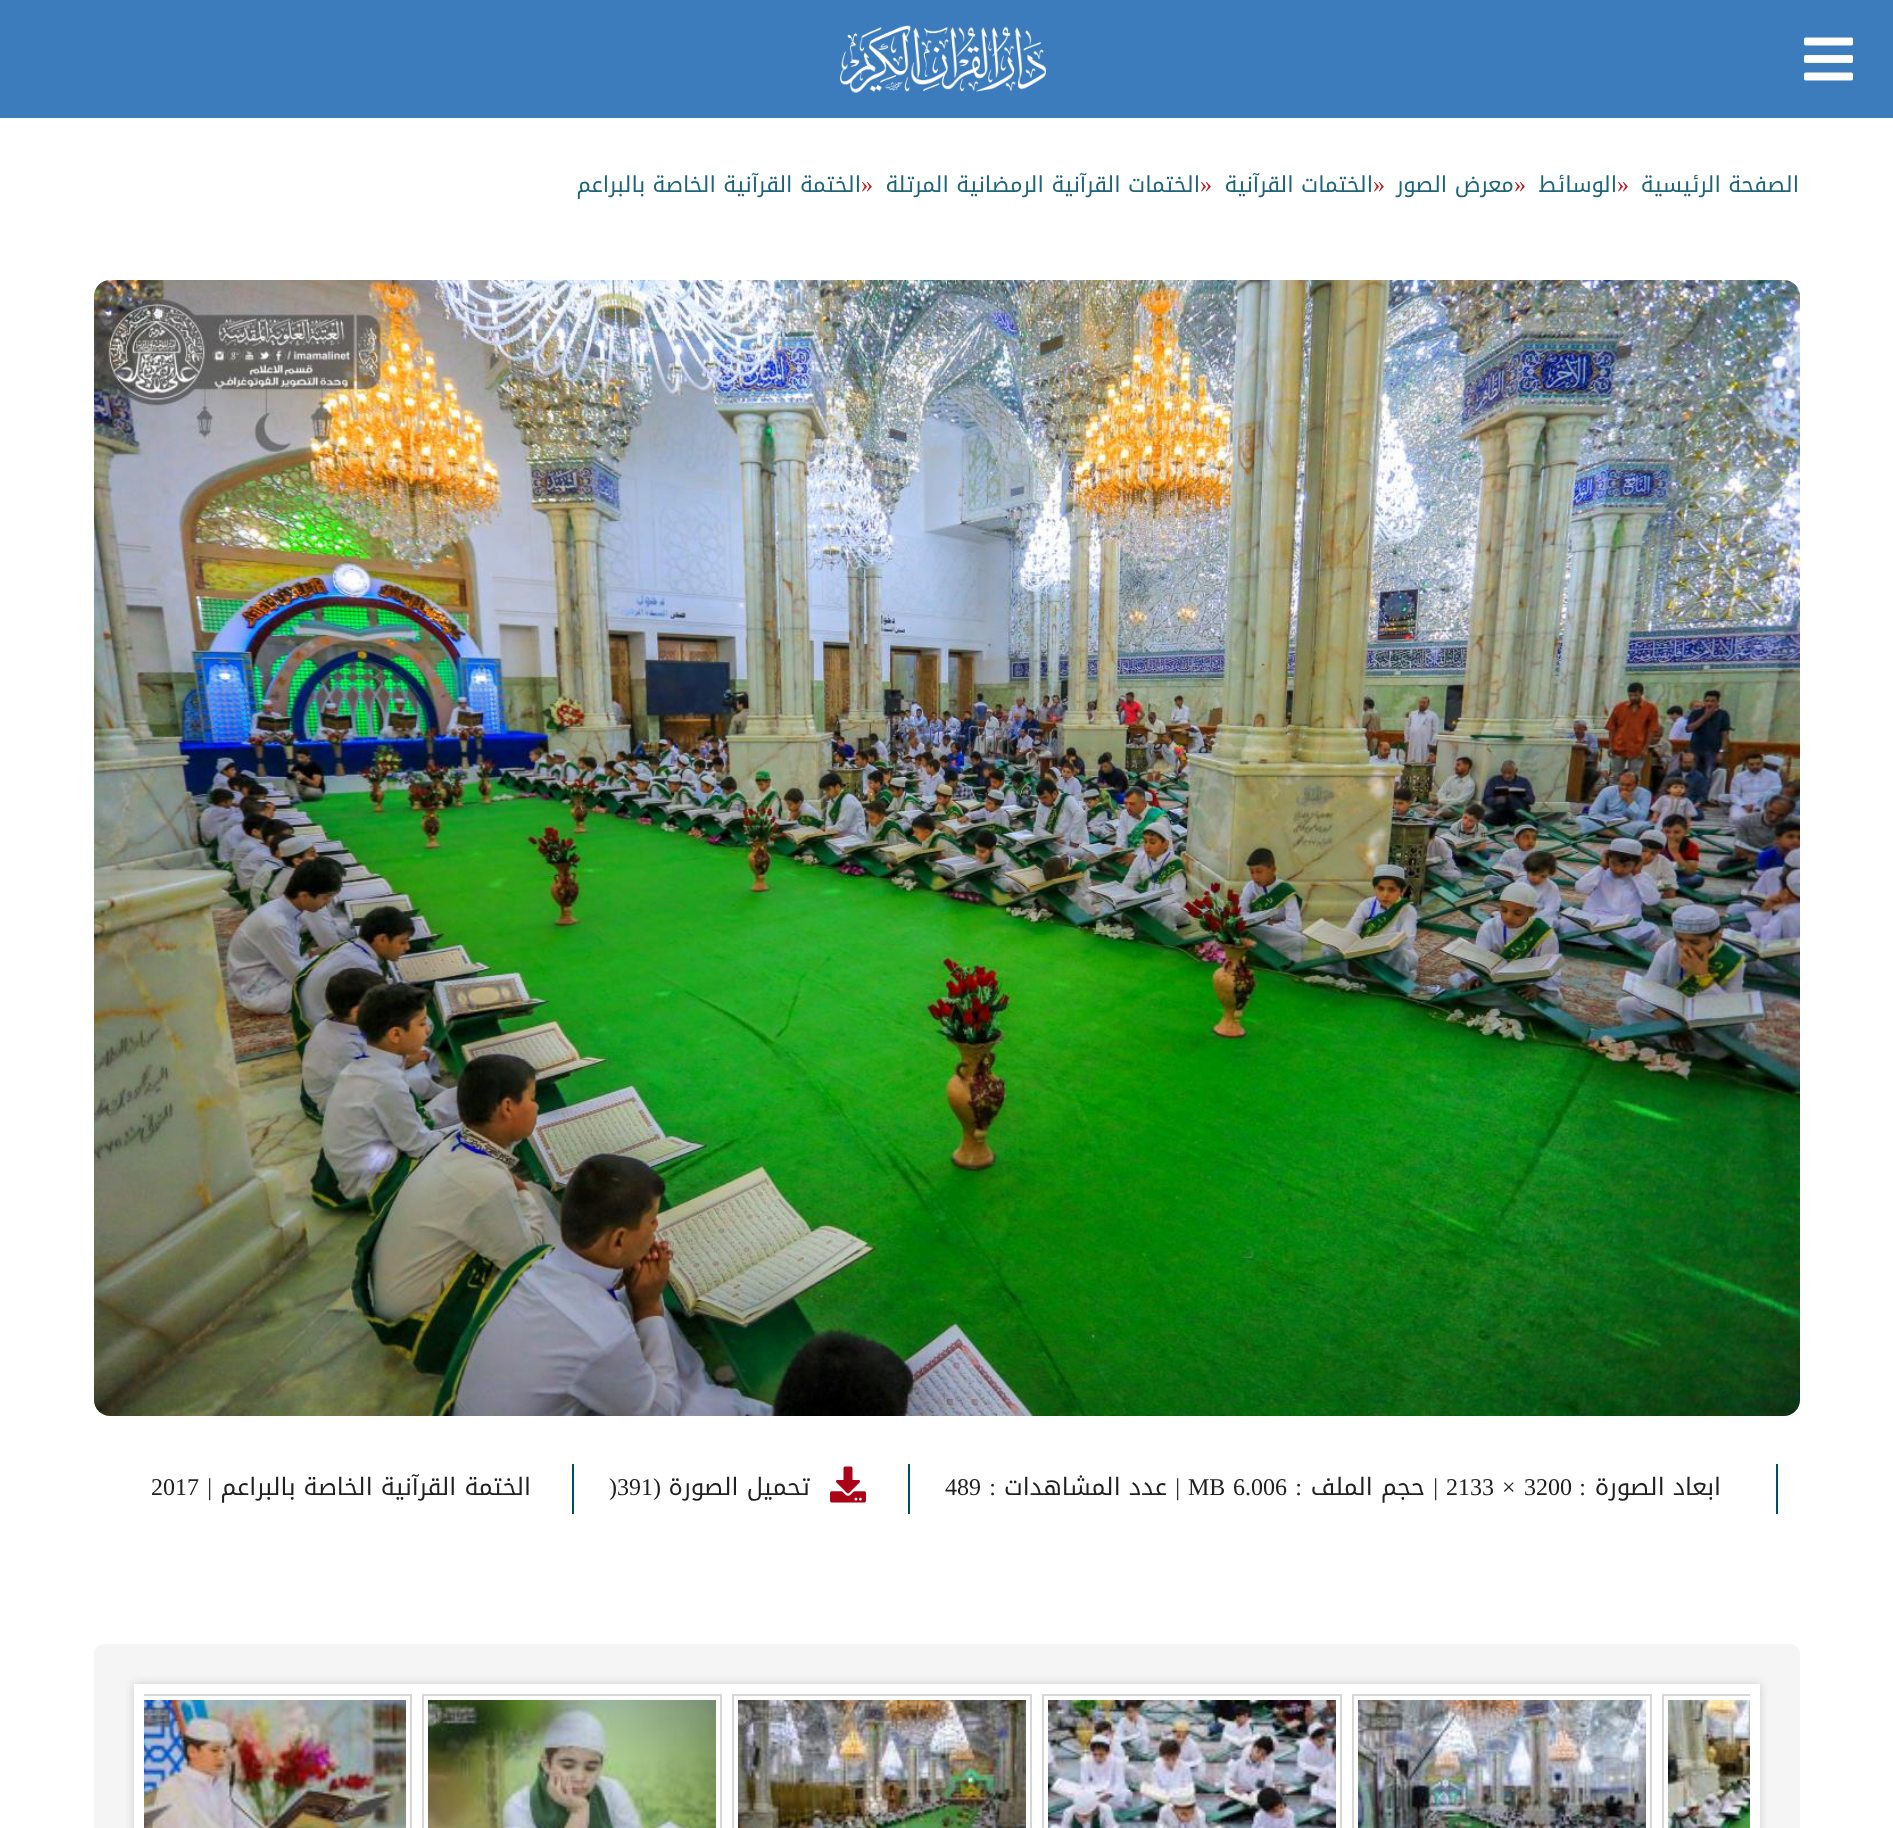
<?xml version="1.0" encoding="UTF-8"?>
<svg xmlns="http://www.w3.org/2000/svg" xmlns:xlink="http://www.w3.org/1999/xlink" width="1893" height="1828">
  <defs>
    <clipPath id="clip1"><rect x="144" y="1684" width="1606" height="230" /></clipPath>
  </defs>
  <rect width="100%" height="100%" fill="#ffffff" />
  <rect width="1893" height="118" fill="#3c7cbc" />
  <image x="1804" y="37" width="49" height="44" xlink:href="image1.png" />
  <image x="840" y="25" width="206" height="68" xlink:href="image2.png" />
  <image x="94" y="280" width="1706" height="1136" xlink:href="image3.png" />
  <rect x="1776" y="1464" width="2" height="50" fill="#004d6a" />
  <rect x="908" y="1464" width="2" height="50" fill="#004d6a" />
  <rect x="572" y="1464" width="2" height="50" fill="#004d6a" />
  <image x="830" y="1466" width="36" height="37" xlink:href="image4.png" />
  <rect x="94" y="1644" width="1706" height="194" rx="10" fill="#f5f5f5" />
  <rect x="134" y="1684" width="1626" height="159" fill="#cccccc" filter="blur(5px)" />
  <rect x="134" y="1684" width="1626" height="144" fill="#ffffff" />
  <g clip-path="url(#clip1)">
    <rect x="1663" y="1695" width="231" height="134" fill="none" stroke="#d6d6d6" stroke-width="2" />
  </g>
  <image x="1668" y="1700" width="82" height="128" xlink:href="image5.png" />
  <rect x="1353" y="1695" width="298" height="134" fill="none" stroke="#d6d6d6" stroke-width="2" />
  <image x="1358" y="1700" width="288" height="128" xlink:href="image6.png" />
  <rect x="1043" y="1695" width="298" height="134" fill="none" stroke="#d6d6d6" stroke-width="2" />
  <image x="1048" y="1700" width="288" height="128" xlink:href="image7.png" />
  <rect x="733" y="1695" width="298" height="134" fill="none" stroke="#d6d6d6" stroke-width="2" />
  <image x="738" y="1700" width="288" height="128" xlink:href="image8.png" />
  <rect x="423" y="1695" width="298" height="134" fill="none" stroke="#d6d6d6" stroke-width="2" />
  <image x="428" y="1700" width="288" height="128" xlink:href="image9.png" />
  <g clip-path="url(#clip1)">
    <rect x="113" y="1695" width="298" height="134" fill="none" stroke="#d6d6d6" stroke-width="2" />
  </g>
  <image x="144" y="1700" width="262" height="128" xlink:href="image10.png" />
  <text x="1799" y="192" style="font-family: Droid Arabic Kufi; font-size: 22px; direction: rtl; fill: #1d6478">الصفحة الرئيسية</text>
  <text x="1617" y="192" style="font-family: Liberation Serif; font-size: 24px; fill: #b52025">»</text>
  <text x="1617" y="192" style="font-family: Droid Arabic Kufi; font-size: 22px; direction: rtl; fill: #1d6478">الوسائط</text>
  <text x="1514" y="192" style="font-family: Liberation Serif; font-size: 24px; fill: #b52025">»</text>
  <text x="1514" y="192" style="font-family: Droid Arabic Kufi; font-size: 22px; direction: rtl; fill: #1d6478">معرض الصور</text>
  <text x="1373" y="192" style="font-family: Liberation Serif; font-size: 24px; fill: #b52025">»</text>
  <text x="1373" y="192" style="font-family: Droid Arabic Kufi; font-size: 22px; direction: rtl; fill: #1d6478">الختمات القرآنية</text>
  <text x="1200" y="192" style="font-family: Liberation Serif; font-size: 24px; fill: #b52025">»</text>
  <text x="1200" y="192" style="font-family: Droid Arabic Kufi; font-size: 22px; direction: rtl; fill: #1d6478">الختمات القرآنية الرمضانية المرتلة</text>
  <text x="861" y="192" style="font-family: Liberation Serif; font-size: 24px; fill: #b52025">»</text>
  <text x="861" y="192" style="font-family: Droid Arabic Kufi; font-size: 22px; direction: rtl; fill: #1d6478">الختمة القرآنية الخاصة بالبراعم</text>
  <text x="1721" y="1495" style="font-family: Droid Arabic Kufi; font-size: 24px; direction: rtl; fill: #202020">ابعاد الصورة</text>
  <text x="1586" y="1495" style="font-family: Liberation Serif; font-size: 24px; direction: rtl; fill: #202020">:</text>
  <text x="1524" y="1495" style="font-family: Liberation Serif; font-size: 24px; fill: #202020">3200</text>
  <text x="1502" y="1495" style="font-family: Liberation Serif; font-size: 24px; fill: #202020">×</text>
  <text x="1446" y="1495" style="font-family: Liberation Serif; font-size: 24px; fill: #202020">2133</text>
  <text x="1438" y="1495" style="font-family: Liberation Serif; font-size: 24px; direction: rtl; fill: #202020">|</text>
  <text x="1425" y="1495" style="font-family: Droid Arabic Kufi; font-size: 24px; direction: rtl; fill: #202020">حجم الملف</text>
  <text x="1302" y="1495" style="font-family: Liberation Serif; font-size: 24px; direction: rtl; fill: #202020">:</text>
  <text x="1233" y="1495" style="font-family: Liberation Serif; font-size: 24px; fill: #202020">6.006</text>
  <text x="1188" y="1495" style="font-family: Liberation Serif; font-size: 24px; fill: #202020">MB</text>
  <text x="1180" y="1495" style="font-family: Liberation Serif; font-size: 24px; direction: rtl; fill: #202020">|</text>
  <text x="1167" y="1495" style="font-family: Droid Arabic Kufi; font-size: 24px; direction: rtl; fill: #202020">عدد المشاهدات</text>
  <text x="996" y="1495" style="font-family: Liberation Serif; font-size: 24px; direction: rtl; fill: #202020">:</text>
  <text x="945" y="1495" style="font-family: Liberation Serif; font-size: 24px; fill: #202020">489</text>
  <text x="810" y="1495" style="font-family: Droid Arabic Kufi; font-size: 24px; direction: rtl; fill: #202020">تحميل الصورة</text>
  <text x="661" y="1495" style="font-family: Liberation Serif; font-size: 24px; direction: rtl; fill: #202020">(</text>
  <text x="609" y="1495" style="font-family: Liberation Serif; font-size: 24px; fill: #202020">)391</text>
  <text x="531" y="1495" style="font-family: Droid Arabic Kufi; font-size: 24px; direction: rtl; fill: #202020">الختمة القرآنية الخاصة بالبراعم</text>
  <text x="212" y="1495" style="font-family: Liberation Serif; font-size: 24px; direction: rtl; fill: #202020">|</text>
  <text x="151" y="1495" style="font-family: Liberation Serif; font-size: 24px; fill: #202020">2017</text>
</svg>
